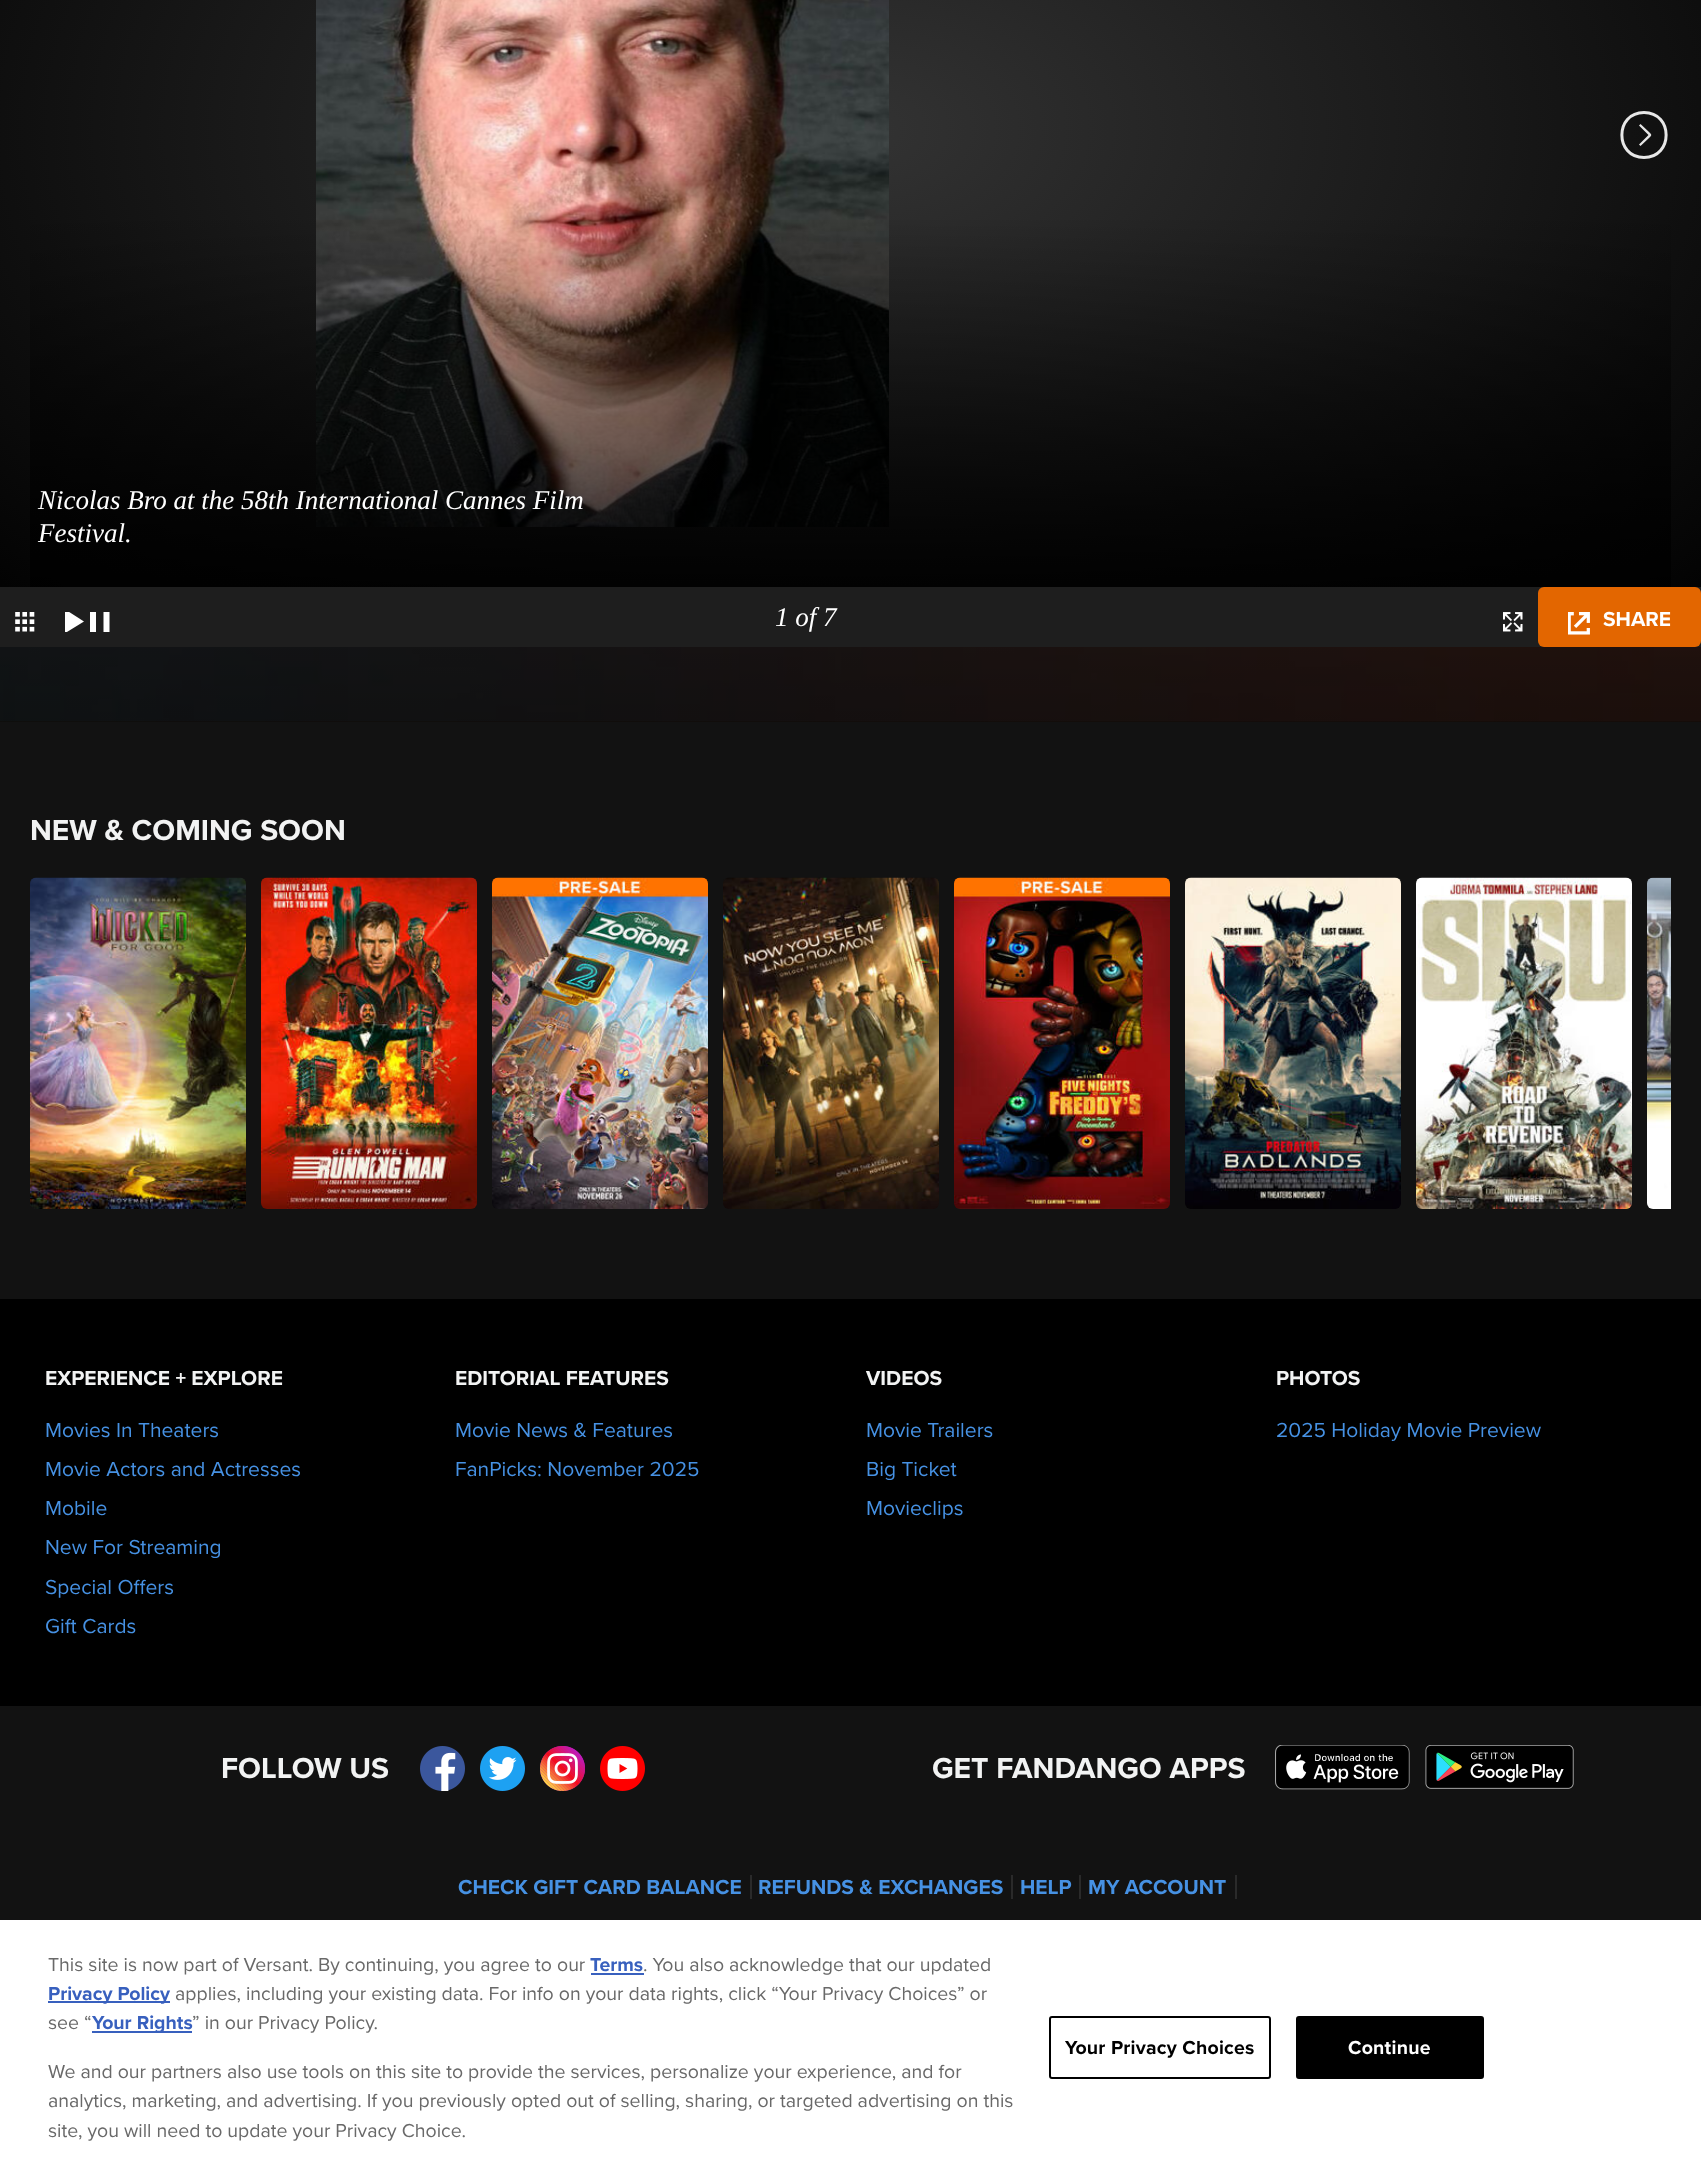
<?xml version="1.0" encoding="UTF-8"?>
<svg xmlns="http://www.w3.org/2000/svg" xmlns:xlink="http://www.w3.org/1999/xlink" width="1701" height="2179">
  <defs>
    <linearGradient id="g1" gradientUnits="userSpaceOnUse" x1="851" y1="-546" x2="851" y2="722"><stop offset="0.33" stop-color="#000000" stop-opacity="0" /><stop offset="1" stop-color="#000000" stop-opacity="0.6" /></linearGradient>
    <radialGradient id="g2" gradientUnits="userSpaceOnUse" cx="0" cy="0" r="1" gradientTransform="matrix(1203 0 0 732 851 129)"><stop offset="0" stop-color="#333333" /><stop offset="1" stop-color="#000000" /></radialGradient>
    <linearGradient id="g3" gradientUnits="userSpaceOnUse" x1="851" y1="211" x2="851" y2="587"><stop offset="0" stop-color="#000000" stop-opacity="0" /><stop offset="1" stop-color="#000000" stop-opacity="0.9" /></linearGradient>
    <clipPath id="clip1"><rect x="65" y="612" width="19" height="20" /></clipPath>
    <clipPath id="clip2"><rect x="90" y="612" width="20" height="20" /></clipPath>
  </defs>
  <rect width="100%" height="100%" fill="#121212" />
  <rect y="721" width="1701" height="1" fill="#271a10" />
  <image x="0" y="647" width="1701" height="75" xlink:href="image1.png" />
  <rect y="647" width="1701" height="75" fill="url(#g1)" />
  <rect width="1701" height="587" fill="url(#g2)" />
  <path d="M 1644 112.5 c -29.5 0 -29.5 45 0 45 c 29.5 0 29.5 -45 0 -45 z" fill="none" stroke="#e7e7e7" stroke-width="3" />
  <path d="M 1648.5 135 l -9.5 9.5 l 1.5 1.5 l 8.5 -8 c 3 -3 3 -3 0 -6 l -8.5 -8 l -1.5 1.5 z" fill="#e7e7e7" fill-rule="evenodd" />
  <image x="316" y="0" width="573" height="527" xlink:href="image2.png" />
  <rect x="30" y="220" width="1641" height="367" fill="url(#g3)" />
  <rect y="587" width="1701" height="60" fill="#1e1e1e" />
  <image x="15" y="612" width="20" height="20" xlink:href="image3.png" />
  <g clip-path="url(#clip1)">
    <path d="M 64.5 609 v 24.5 l 19.5 -12 z" fill="#ffffff" />
  </g>
  <g clip-path="url(#clip2)">
    <path d="M 90 610.5 h 6 v 22 h -6 z m 13.5 0 h 6 v 22 h -6 z" fill="#ffffff" />
  </g>
  <image x="1503" y="612" width="20" height="20" xlink:href="image4.png" />
  <rect x="1538" y="587" width="163" height="60" rx="6" fill="#e36600" />
  <image x="1568" y="612" width="22" height="23" xlink:href="image5.png" />
  <image x="30" y="877" width="216" height="332" xlink:href="image6.png" />
  <image x="261" y="877" width="216" height="332" xlink:href="image7.png" />
  <image x="492" y="877" width="216" height="332" xlink:href="image8.png" />
  <image x="723" y="877" width="216" height="332" xlink:href="image9.png" />
  <image x="954" y="877" width="216" height="332" xlink:href="image10.png" />
  <image x="1185" y="877" width="216" height="332" xlink:href="image11.png" />
  <image x="1416" y="877" width="216" height="332" xlink:href="image12.png" />
  <image x="1647" y="877" width="24" height="332" xlink:href="image13.png" />
  <rect y="1299" width="1701" height="407" fill="#000000" />
  <image x="420" y="1746" width="45" height="45" xlink:href="image14.png" />
  <image x="480" y="1746" width="45" height="45" xlink:href="image15.png" />
  <image x="540" y="1746" width="45" height="45" xlink:href="image16.png" />
  <image x="600" y="1746" width="45" height="45" xlink:href="image17.png" />
  <image x="1275" y="1745" width="135" height="45" xlink:href="image18.png" />
  <image x="1425" y="1745" width="149" height="44" xlink:href="image19.png" />
  <rect x="750" y="1875" width="2" height="24" fill="#2a2a2a" />
  <rect x="1011" y="1875" width="2" height="24" fill="#2a2a2a" />
  <rect x="1079" y="1875" width="2" height="24" fill="#2a2a2a" />
  <rect x="1235" y="1875" width="2" height="24" fill="#2a2a2a" />
  <rect y="1920" width="1701" height="259" fill="#ffffff" />
  <rect x="591" y="1973" width="53" height="2" fill="#3860be" />
  <rect x="48" y="2001" width="122" height="2" fill="#3860be" />
  <rect x="92" y="2031" width="100" height="2" fill="#3860be" />
  <rect x="1050" y="2017" width="220" height="61" rx="2" fill="none" stroke="#000000" stroke-width="2" />
  <rect x="1297" y="2017" width="186" height="61" rx="2" fill="#000000" stroke="#000000" stroke-width="2" />
  <text x="38" y="509" style="font-family: Liberation Serif; font-size: 27px; font-style: italic; fill: #ffffff">Nicolas Bro at the 58th International Cannes Film</text>
  <text x="38" y="542" style="font-family: Liberation Serif; font-size: 27px; font-style: italic; fill: #ffffff">Festival.</text>
  <text x="775" y="626" style="font-family: Liberation Serif; font-size: 27px; font-style: italic; fill: #ffffff">1 of 7</text>
  <text x="1603" y="626" style="font-family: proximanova; font-size: 21px; font-weight: bold; fill: #ffffff">SHARE</text>
  <text x="30" y="840" style="font-family: proximanova; font-size: 30px; font-weight: bold; fill: #f2f3f3">NEW &amp; COMING SOON</text>
  <text x="45" y="1385" style="font-family: proximanova; font-size: 21px; font-weight: bold; fill: #f2f3f3">EXPERIENCE + EXPLORE</text>
  <text x="45" y="1437" style="font-family: Proxima Nova; font-size: 21px; fill: #4691e3">Movies In Theaters</text>
  <text x="45" y="1476" style="font-family: Proxima Nova; font-size: 21px; fill: #4691e3">Movie Actors and Actresses</text>
  <text x="45" y="1515" style="font-family: Proxima Nova; font-size: 21px; fill: #4691e3">Mobile</text>
  <text x="45" y="1554" style="font-family: Proxima Nova; font-size: 21px; fill: #4691e3">New For Streaming</text>
  <text x="45" y="1594" style="font-family: Proxima Nova; font-size: 21px; fill: #4691e3">Special Offers</text>
  <text x="45" y="1633" style="font-family: Proxima Nova; font-size: 21px; fill: #4691e3">Gift Cards</text>
  <text x="455" y="1385" style="font-family: proximanova; font-size: 21px; font-weight: bold; fill: #f2f3f3">EDITORIAL FEATURES</text>
  <text x="455" y="1437" style="font-family: Proxima Nova; font-size: 21px; fill: #4691e3">Movie News &amp; Features</text>
  <text x="455" y="1476" style="font-family: Proxima Nova; font-size: 21px; fill: #4691e3">FanPicks: November 2025</text>
  <text x="866" y="1385" style="font-family: proximanova; font-size: 21px; font-weight: bold; fill: #f2f3f3">VIDEOS</text>
  <text x="866" y="1437" style="font-family: Proxima Nova; font-size: 21px; fill: #4691e3">Movie Trailers</text>
  <text x="866" y="1476" style="font-family: Proxima Nova; font-size: 21px; fill: #4691e3">Big Ticket</text>
  <text x="866" y="1515" style="font-family: Proxima Nova; font-size: 21px; fill: #4691e3">Movieclips</text>
  <text x="1276" y="1385" style="font-family: proximanova; font-size: 21px; font-weight: bold; fill: #f2f3f3">PHOTOS</text>
  <text x="1276" y="1437" style="font-family: Proxima Nova; font-size: 21px; fill: #4691e3">2025 Holiday Movie Preview</text>
  <text x="221" y="1778" style="font-family: proximanova; font-size: 30px; font-weight: bold; fill: #f2f3f3">FOLLOW US</text>
  <text x="932" y="1778" style="font-family: proximanova; font-size: 30px; font-weight: bold; fill: #f2f3f3">GET FANDANGO APPS</text>
  <text x="458" y="1894" style="font-family: proximanova; font-size: 21px; font-weight: bold; fill: #4691e3">CHECK GIFT CARD BALANCE</text>
  <text x="758" y="1894" style="font-family: proximanova; font-size: 21px; font-weight: bold; fill: #4691e3">REFUNDS &amp; EXCHANGES</text>
  <text x="1020" y="1894" style="font-family: proximanova; font-size: 21px; font-weight: bold; fill: #4691e3">HELP</text>
  <text x="1088" y="1894" style="font-family: proximanova; font-size: 21px; font-weight: bold; fill: #4691e3">MY ACCOUNT</text>
  <text x="48" y="1971" style="font-family: Proxima Nova; font-size: 19.5px; fill: #696969">This site is now part of Versant. By continuing, you agree to our</text>
  <text x="590" y="1971" style="font-family: proximanova; font-size: 19.5px; font-weight: bold; fill: #3860be">Terms</text>
  <text x="643" y="1971" style="font-family: Proxima Nova; font-size: 19.5px; fill: #696969">. You also acknowledge that our updated</text>
  <text x="48" y="2000" style="font-family: proximanova; font-size: 19.5px; font-weight: bold; fill: #3860be">Privacy Policy</text>
  <text x="175" y="2000" style="font-family: Proxima Nova; font-size: 19.5px; fill: #696969">applies, including your existing data. For info on your data rights, click “Your Privacy Choices” or</text>
  <text x="48" y="2029" style="font-family: Proxima Nova; font-size: 19.5px; fill: #696969">see “</text>
  <text x="92" y="2029" style="font-family: proximanova; font-size: 19.5px; font-weight: bold; fill: #3860be">Your Rights</text>
  <text x="192" y="2029" style="font-family: Proxima Nova; font-size: 19.5px; fill: #696969">” in our Privacy Policy.</text>
  <text x="48" y="2078" style="font-family: Proxima Nova; font-size: 19.5px; fill: #696969">We and our partners also use tools on this site to provide the services, personalize your experience, and for</text>
  <text x="48" y="2107" style="font-family: Proxima Nova; font-size: 19.5px; fill: #696969">analytics, marketing, and advertising. If you previously opted out of selling, sharing, or targeted advertising on this</text>
  <text x="48" y="2137" style="font-family: Proxima Nova; font-size: 19.5px; fill: #696969">site, you will need to update your Privacy Choice.</text>
  <text x="1065" y="2054" style="font-family: proximanova; font-size: 19.5px; font-weight: bold; letter-spacing: 0.25px; fill: #000000">Your Privacy Choices</text>
  <text x="1348" y="2054" style="font-family: proximanova; font-size: 19.5px; font-weight: bold; letter-spacing: 0.25px; fill: #ffffff">Continue</text>
</svg>
